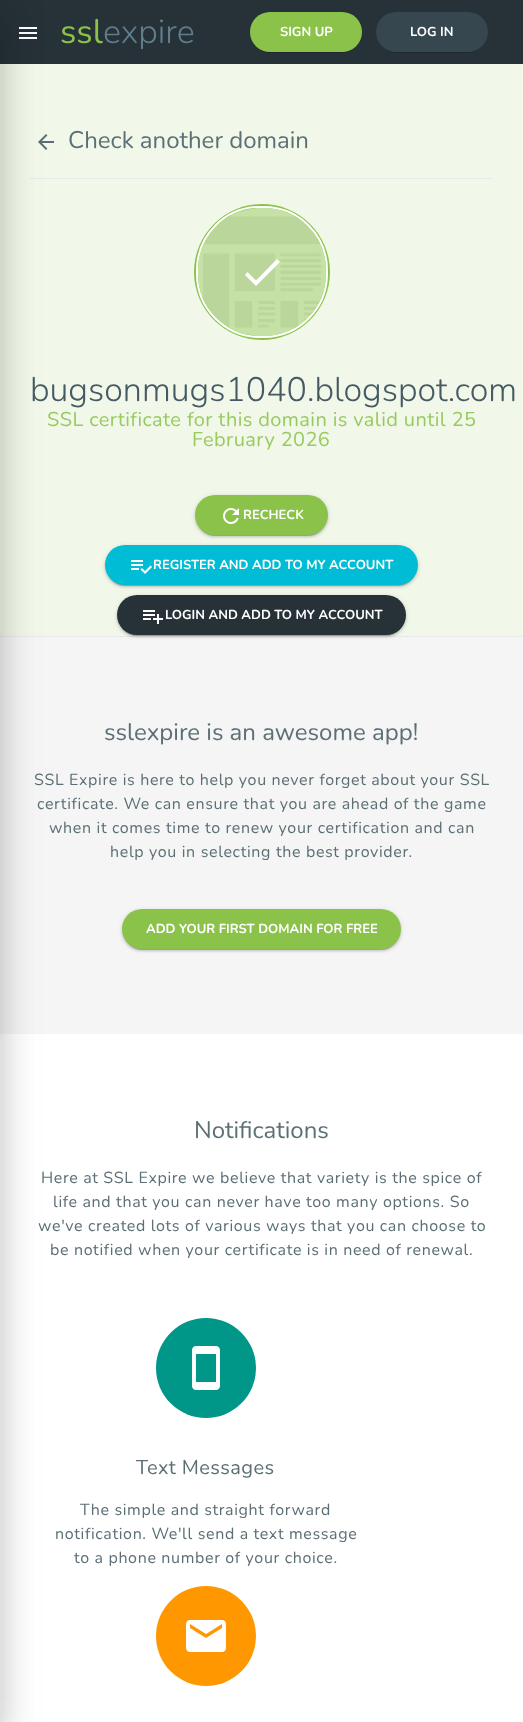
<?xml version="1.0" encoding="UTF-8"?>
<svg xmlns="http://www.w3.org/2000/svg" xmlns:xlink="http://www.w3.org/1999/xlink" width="523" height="1722">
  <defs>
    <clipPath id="clip1"><rect x="198" y="208" width="128" height="128" rx="62" /></clipPath>
  </defs>
  <rect width="100%" height="100%" fill="#ffffff" />
  <rect width="523" height="64" fill="#263238" />
  <image x="19" y="27" width="18" height="12" xlink:href="image1.png" />
  <rect y="64" width="523" height="572" fill="#f1f8e9" />
  <rect y="636" width="523" height="1" fill="#e8e8e8" />
  <rect x="30" y="178" width="463" height="1" fill="#e8e8e8" />
  <image x="38" y="134" width="16" height="16" xlink:href="image2.png" />
  <rect y="637" width="523" height="397" fill="#f5f5f5" />
  <rect x="-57" y="21" width="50" height="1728" fill="#000000" fill-opacity="0.2" filter="blur(19px)" />
  <rect x="-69" y="1" width="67" height="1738" fill="#000000" fill-opacity="0.14" filter="blur(23px)" />
  <rect x="252" y="17" width="108" height="36" rx="18" fill="#000000" fill-opacity="0.2" filter="blur(0.5px)" />
  <rect x="250" y="12" width="112" height="40" rx="20" fill="#8bc34a" />
  <rect x="378" y="17" width="108" height="36" rx="18" fill="#000000" fill-opacity="0.2" filter="blur(0.5px)" />
  <rect x="376" y="12" width="112" height="40" rx="20" fill="#37474f" />
  <circle cx="262" cy="272" r="68" fill="#8bc34a" />
  <rect x="197" y="207" width="130" height="130" rx="63" fill="none" stroke="#ffffff" stroke-width="2" />
  <g clip-path="url(#clip1)">
    <circle cx="262" cy="272" r="64" fill="#8bc34a" fill-opacity="0.5" />
  </g>
  <image x="198" y="208" width="128" height="128" xlink:href="image3.png" />
  <path d="M 256 280.5 l 21 -21.5 l 3 3 l -24 24 l -11 -11 l 2.5 -3 z" fill="#ffffff" />
  <rect x="195" y="496" width="133" height="40" rx="20" fill="#000000" fill-opacity="0.12" filter="blur(2.5px)" />
  <rect x="197" y="500" width="129" height="36" rx="18" fill="#000000" fill-opacity="0.2" filter="blur(0.5px)" />
  <rect x="195" y="497" width="133" height="40" rx="20" fill="#000000" fill-opacity="0.14" filter="blur(1px)" />
  <rect x="195" y="495" width="133" height="40" rx="20" fill="#8bc34a" />
  <image x="223" y="508" width="16" height="16" xlink:href="image4.png" />
  <rect x="105" y="546" width="313" height="40" rx="20" fill="#000000" fill-opacity="0.12" filter="blur(2.5px)" />
  <rect x="107" y="550" width="309" height="36" rx="18" fill="#000000" fill-opacity="0.2" filter="blur(0.5px)" />
  <rect x="105" y="547" width="313" height="40" rx="20" fill="#000000" fill-opacity="0.14" filter="blur(1px)" />
  <rect x="105" y="545" width="313" height="40" rx="20" fill="#00bcd4" />
  <image x="131" y="560" width="21" height="14" xlink:href="image5.png" />
  <rect x="117" y="596" width="289" height="40" rx="20" fill="#000000" fill-opacity="0.12" filter="blur(2.5px)" />
  <rect x="119" y="600" width="285" height="36" rx="18" fill="#000000" fill-opacity="0.2" filter="blur(0.5px)" />
  <rect x="117" y="597" width="289" height="40" rx="20" fill="#000000" fill-opacity="0.14" filter="blur(1px)" />
  <rect x="117" y="595" width="289" height="40" rx="20" fill="#263238" />
  <image x="143" y="610" width="20" height="14" xlink:href="image6.png" />
  <rect x="122" y="910" width="279" height="40" rx="20" fill="#000000" fill-opacity="0.12" filter="blur(2.5px)" />
  <rect x="124" y="914" width="275" height="36" rx="18" fill="#000000" fill-opacity="0.2" filter="blur(0.5px)" />
  <rect x="122" y="911" width="279" height="40" rx="20" fill="#000000" fill-opacity="0.14" filter="blur(1px)" />
  <rect x="122" y="909" width="279" height="40" rx="20" fill="#8bc34a" />
  <circle cx="206" cy="1368" r="50" fill="#009688" />
  <image x="192" y="1346" width="28" height="44" xlink:href="image7.png" />
  <circle cx="206" cy="1636" r="50" fill="#ff9800" />
  <image x="186" y="1620" width="40" height="32" xlink:href="image8.png" />
  <text x="60" y="43" style="font-family: Nunito; font-size: 34px; fill: #8bc34a">ssl</text>
  <text x="103" y="43" style="font-family: Nunito; font-size: 34px; font-weight: 300; fill: #607d8b">expire</text>
  <text x="280" y="36" style="font-family: Nunito; font-size: 13px; font-weight: bold; fill: #ffffff">SIGN UP</text>
  <text x="410" y="36" style="font-family: Nunito; font-size: 13px; font-weight: bold; fill: #ffffff">LOG IN</text>
  <text x="68" y="148" style="font-family: Nunito; font-size: 24px; fill: #5b6f75">Check another domain</text>
  <text x="30" y="401" style="font-family: Nunito; font-size: 34px; font-weight: 300; fill: #455a64">bugsonmugs1040.blogspot.com</text>
  <text x="47" y="426" style="font-family: Nunito; font-size: 20px; letter-spacing: 0.4px; fill: #98ca5f">SSL certificate for this domain is valid until 25</text>
  <text x="192" y="446" style="font-family: Nunito; font-size: 20px; letter-spacing: 0.4px; fill: #98ca5f">February 2026</text>
  <text x="243" y="519" style="font-family: Nunito; font-size: 13px; font-weight: bold; fill: #ffffff">RECHECK</text>
  <text x="153" y="569" style="font-family: Nunito; font-size: 13px; font-weight: bold; fill: #ffffff">REGISTER AND ADD TO MY ACCOUNT</text>
  <text x="165" y="619" style="font-family: Nunito; font-size: 13px; font-weight: bold; fill: #ffffff">LOGIN AND ADD TO MY ACCOUNT</text>
  <text x="104" y="740" style="font-family: Nunito; font-size: 24px; fill: #5b6f75">sslexpire is an awesome app!</text>
  <text x="34" y="785" style="font-family: Nunito; font-size: 16px; letter-spacing: 0.65px; fill: #5b6f75">SSL Expire is here to help you never forget about your SSL</text>
  <text x="37" y="809" style="font-family: Nunito; font-size: 16px; letter-spacing: 0.65px; fill: #5b6f75">certificate. We can ensure that you are ahead of the game</text>
  <text x="49" y="833" style="font-family: Nunito; font-size: 16px; letter-spacing: 0.65px; fill: #5b6f75">when it comes time to renew your certification and can</text>
  <text x="110" y="857" style="font-family: Nunito; font-size: 16px; letter-spacing: 0.65px; fill: #5b6f75">help you in selecting the best provider.</text>
  <text x="146" y="933" style="font-family: Nunito; font-size: 13px; font-weight: bold; fill: #ffffff">ADD YOUR FIRST DOMAIN FOR FREE</text>
  <text x="194" y="1138" style="font-family: Nunito; font-size: 24px; fill: #5b6f75">Notifications</text>
  <text x="41" y="1183" style="font-family: Nunito; font-size: 16px; letter-spacing: 0.65px; fill: #5b6f75">Here at SSL Expire we believe that variety is the spice of</text>
  <text x="53" y="1207" style="font-family: Nunito; font-size: 16px; letter-spacing: 0.65px; fill: #5b6f75">life and that you can never have too many options. So</text>
  <text x="38" y="1231" style="font-family: Nunito; font-size: 16px; letter-spacing: 0.65px; fill: #5b6f75">we've created lots of various ways that you can choose to</text>
  <text x="50" y="1255" style="font-family: Nunito; font-size: 16px; letter-spacing: 0.65px; fill: #5b6f75">be notified when your certificate is in need of renewal.</text>
  <text x="136" y="1474" style="font-family: Nunito; font-size: 20px; letter-spacing: 0.4px; fill: #5b6f75">Text Messages</text>
  <text x="80" y="1515" style="font-family: Nunito; font-size: 16px; letter-spacing: 0.65px; fill: #5b6f75">The simple and straight forward</text>
  <text x="55" y="1539" style="font-family: Nunito; font-size: 16px; letter-spacing: 0.65px; fill: #5b6f75">notification. We'll send a text message</text>
  <text x="74" y="1563" style="font-family: Nunito; font-size: 16px; letter-spacing: 0.65px; fill: #5b6f75">to a phone number of your choice.</text>
</svg>
